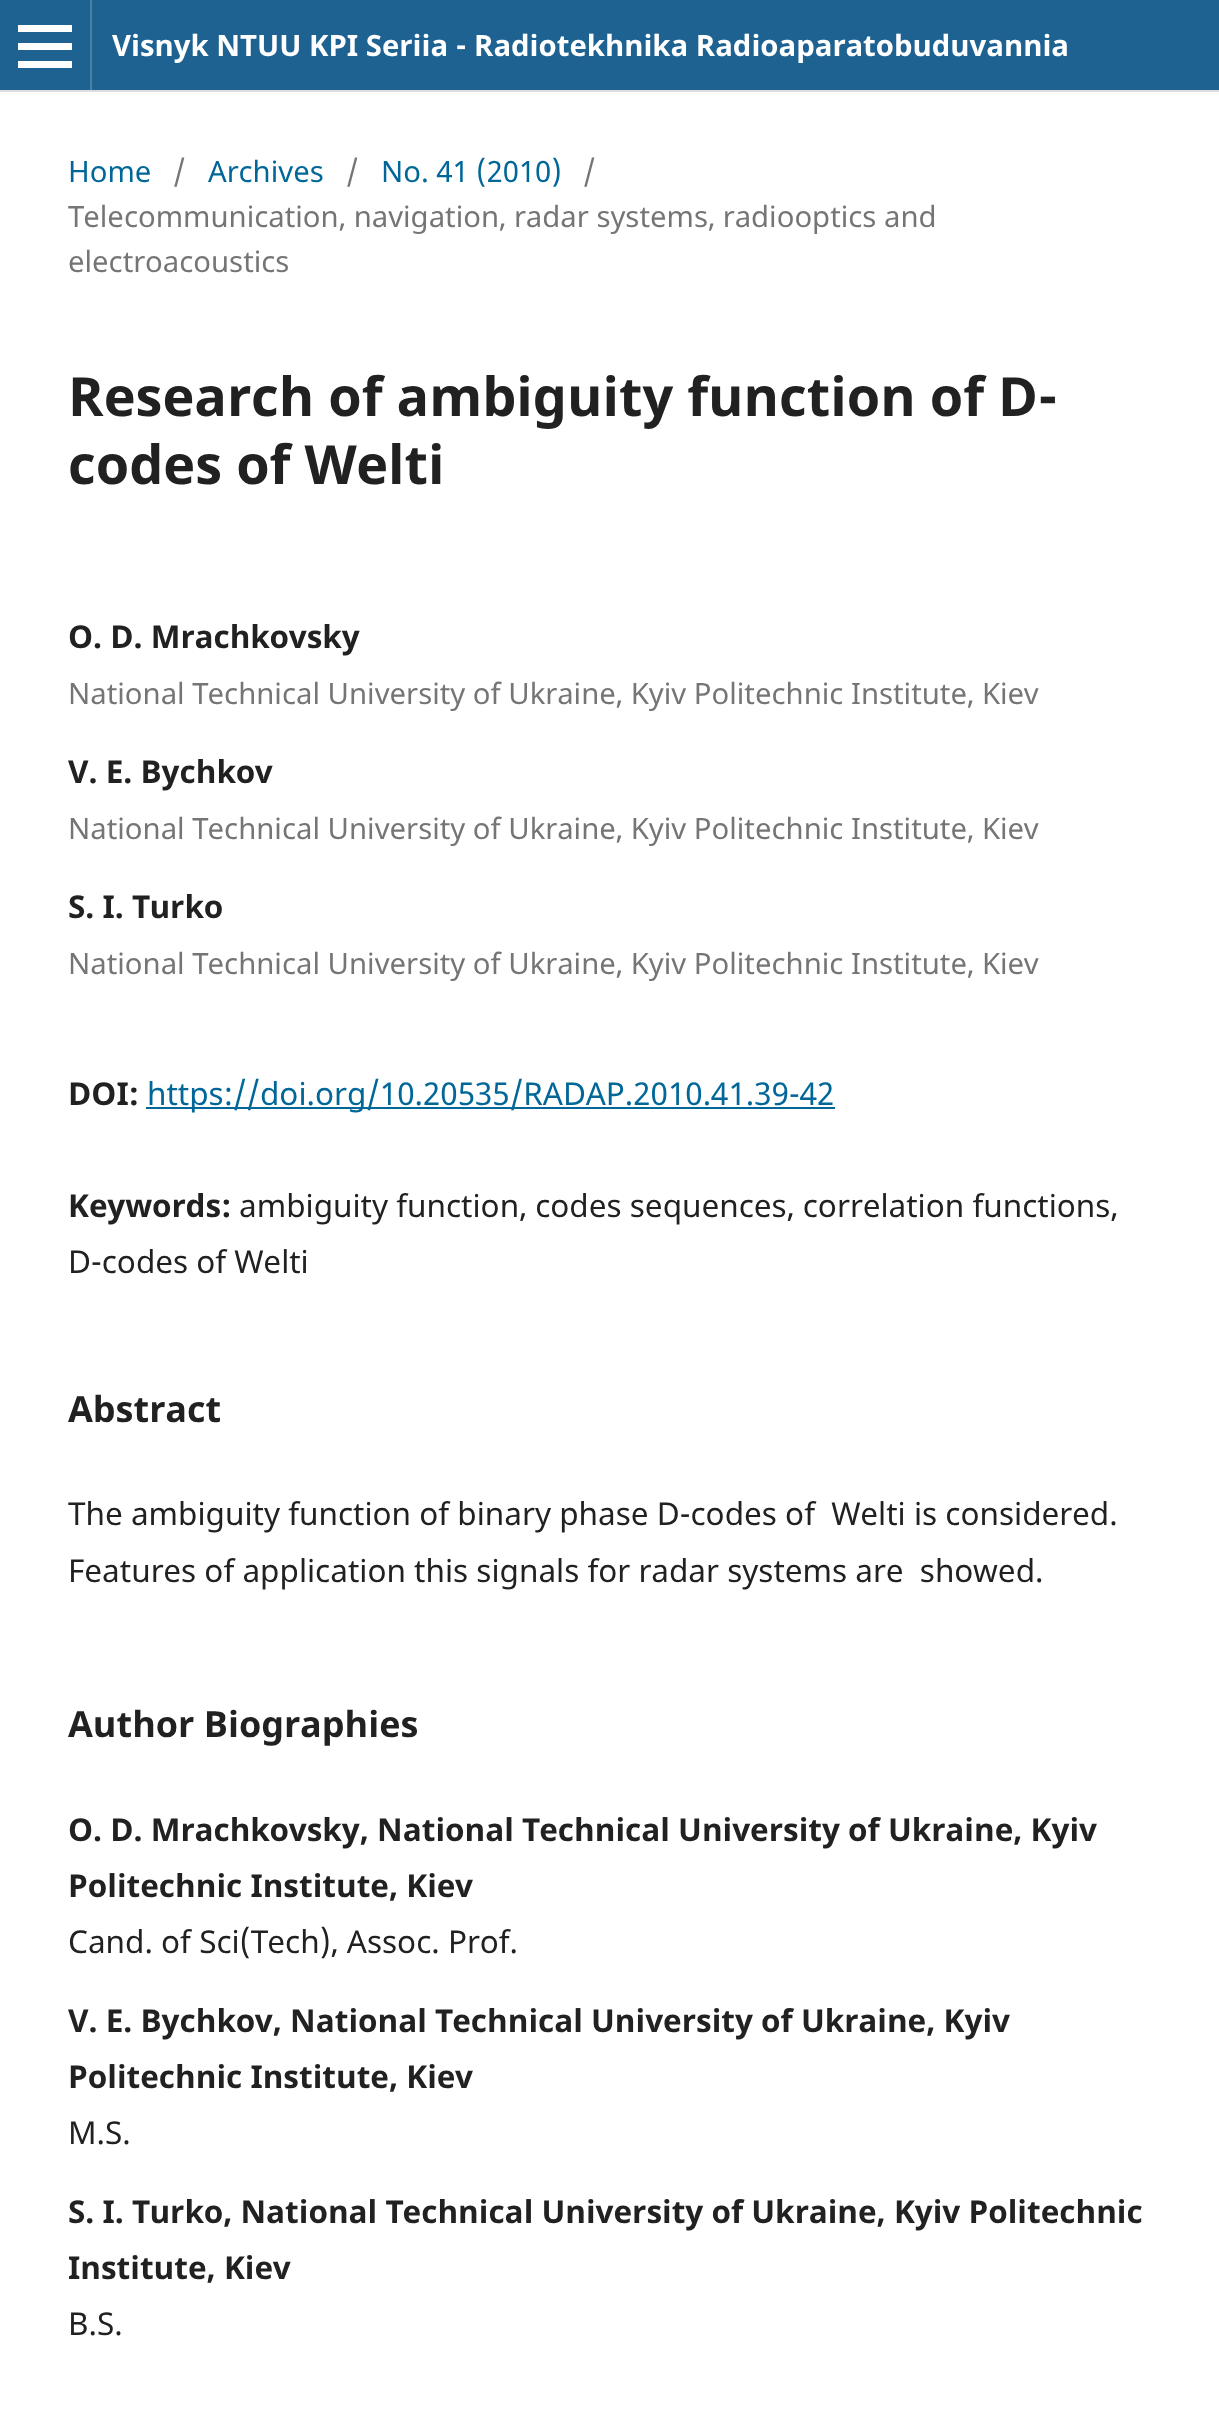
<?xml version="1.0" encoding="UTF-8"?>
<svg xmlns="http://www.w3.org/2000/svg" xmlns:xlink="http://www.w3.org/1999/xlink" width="1219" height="2429">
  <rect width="100%" height="100%" fill="#ffffff" />
  <rect width="1219" height="90" fill="#1e6292" />
  <rect y="90" width="1219" height="2" fill="#dddddd" />
  <rect x="90" width="2" height="90" fill="#4b81a8" />
  <rect x="18" y="61" width="54" height="7" fill="#ffffff" />
  <rect x="18" y="25" width="54" height="7" fill="#ffffff" />
  <rect x="18" y="43" width="54" height="7" fill="#ffffff" />
  <rect x="146" y="1107" width="689" height="2" fill="#006798" />
  <text x="112" y="56" style="font-family: Noto Sans; font-size: 29.3px; font-weight: bold; fill: #ffffff">Visnyk NTUU KPI Seriia - Radiotekhnika Radioaparatobuduvannia</text>
  <text x="68" y="182" style="font-family: Noto Sans; font-size: 29.3px; fill: #006798">Home</text>
  <text x="173" y="182" style="font-family: Noto Sans; font-size: 29.3px; fill: #757575">/</text>
  <text x="208" y="182" style="font-family: Noto Sans; font-size: 29.3px; fill: #006798">Archives</text>
  <text x="346" y="182" style="font-family: Noto Sans; font-size: 29.3px; fill: #757575">/</text>
  <text x="381" y="182" style="font-family: Noto Sans; font-size: 29.3px; fill: #006798">No. 41 (2010)</text>
  <text x="583" y="182" style="font-family: Noto Sans; font-size: 29.3px; fill: #757575">/</text>
  <text x="68" y="227" style="font-family: Noto Sans; font-size: 29.3px; fill: #757575">Telecommunication, navigation, radar systems, radiooptics and</text>
  <text x="68" y="272" style="font-family: Noto Sans; font-size: 29.3px; fill: #757575">electroacoustics</text>
  <text x="68" y="416" style="font-family: Noto Sans; font-size: 54px; font-weight: bold; fill: #212121">Research of ambiguity function of D-</text>
  <text x="68" y="484" style="font-family: Noto Sans; font-size: 54px; font-weight: bold; fill: #212121">codes of Welti</text>
  <text x="68" y="648" style="font-family: Noto Sans; font-size: 31.5px; font-weight: bold; fill: #212121">O. D. Mrachkovsky</text>
  <text x="68" y="704" style="font-family: Noto Sans; font-size: 29.3px; fill: #757575">National Technical University of Ukraine, Kyiv Politechnic Institute, Kiev</text>
  <text x="68" y="783" style="font-family: Noto Sans; font-size: 31.5px; font-weight: bold; fill: #212121">V. E. Bychkov</text>
  <text x="68" y="839" style="font-family: Noto Sans; font-size: 29.3px; fill: #757575">National Technical University of Ukraine, Kyiv Politechnic Institute, Kiev</text>
  <text x="68" y="918" style="font-family: Noto Sans; font-size: 31.5px; font-weight: bold; fill: #212121">S. I. Turko</text>
  <text x="68" y="974" style="font-family: Noto Sans; font-size: 29.3px; fill: #757575">National Technical University of Ukraine, Kyiv Politechnic Institute, Kiev</text>
  <text x="68" y="1105" style="font-family: Noto Sans; font-size: 31.5px; font-weight: bold; fill: #212121">DOI:</text>
  <text x="147" y="1105" style="font-family: Noto Sans; font-size: 31.5px; fill: #006798">https://doi.org/10.20535/RADAP.2010.41.39-42</text>
  <text x="68" y="1217" style="font-family: Noto Sans; font-size: 31.5px; font-weight: bold; fill: #212121">Keywords:</text>
  <text x="239" y="1217" style="font-family: Noto Sans; font-size: 31.5px; fill: #212121">ambiguity function, codes sequences, correlation functions,</text>
  <text x="68" y="1273" style="font-family: Noto Sans; font-size: 31.5px; fill: #212121">D-codes of Welti</text>
  <text x="68" y="1422" style="font-family: Noto Sans; font-size: 36px; font-weight: bold; fill: #212121">Abstract</text>
  <text x="68" y="1525" style="font-family: Noto Sans; font-size: 31.5px; fill: #212121" xml:space="preserve">The ambiguity function of binary phase D-codes of  Welti is considered.</text>
  <text x="68" y="1582" style="font-family: Noto Sans; font-size: 31.5px; fill: #212121" xml:space="preserve">Features of application this signals for radar systems are  showed.</text>
  <text x="68" y="1737" style="font-family: Noto Sans; font-size: 36px; font-weight: bold; fill: #212121">Author Biographies</text>
  <text x="68" y="1841" style="font-family: Noto Sans; font-size: 31.5px; font-weight: bold; fill: #212121">O. D. Mrachkovsky, National Technical University of Ukraine, Kyiv</text>
  <text x="68" y="1897" style="font-family: Noto Sans; font-size: 31.5px; font-weight: bold; fill: #212121">Politechnic Institute, Kiev</text>
  <text x="68" y="1953" style="font-family: Noto Sans; font-size: 31.5px; fill: #212121">Cand. of Sci(Tech), Assoc. Prof.</text>
  <text x="68" y="2032" style="font-family: Noto Sans; font-size: 31.5px; font-weight: bold; fill: #212121">V. E. Bychkov, National Technical University of Ukraine, Kyiv</text>
  <text x="68" y="2088" style="font-family: Noto Sans; font-size: 31.5px; font-weight: bold; fill: #212121">Politechnic Institute, Kiev</text>
  <text x="68" y="2144" style="font-family: Noto Sans; font-size: 31.5px; fill: #212121">M.S.</text>
  <text x="68" y="2223" style="font-family: Noto Sans; font-size: 31.5px; font-weight: bold; fill: #212121">S. I. Turko, National Technical University of Ukraine, Kyiv Politechnic</text>
  <text x="68" y="2279" style="font-family: Noto Sans; font-size: 31.5px; font-weight: bold; fill: #212121">Institute, Kiev</text>
  <text x="68" y="2335" style="font-family: Noto Sans; font-size: 31.5px; fill: #212121">B.S.</text>
</svg>
